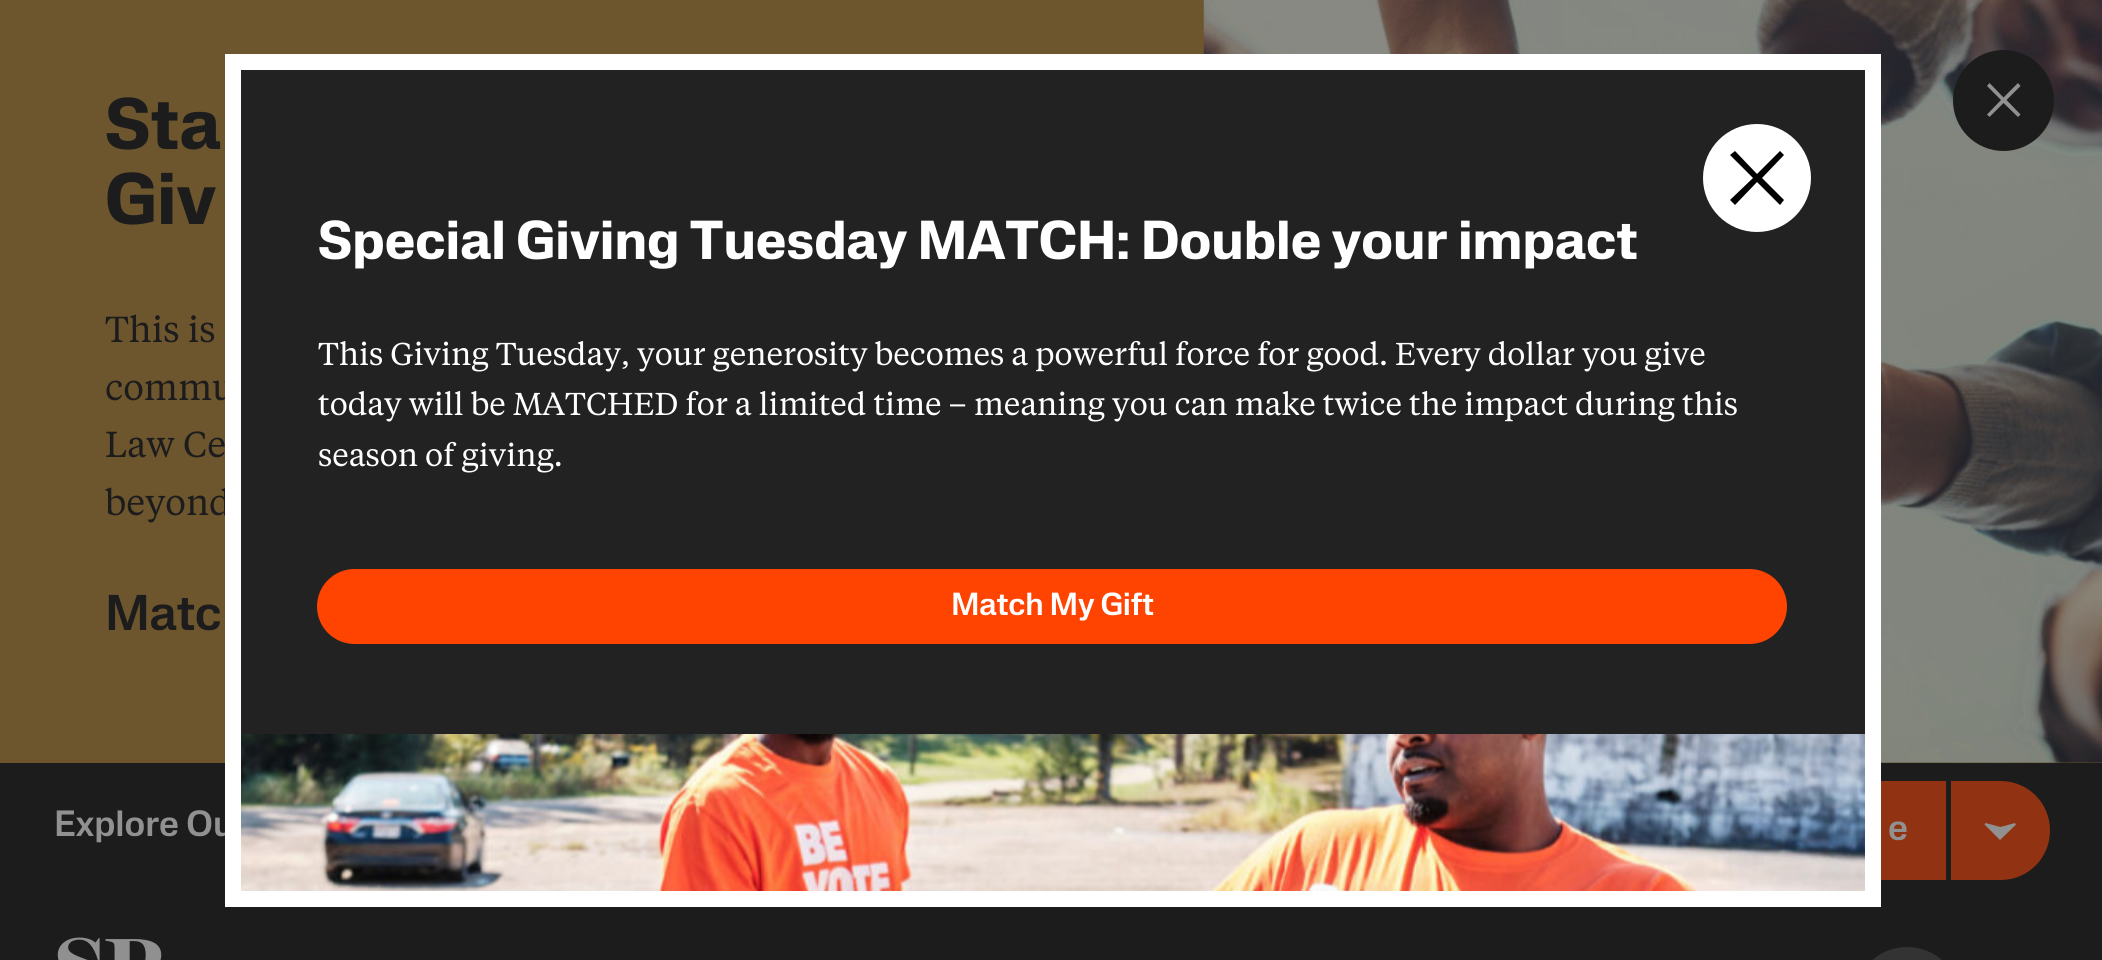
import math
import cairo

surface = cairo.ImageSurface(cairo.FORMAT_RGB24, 2102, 960)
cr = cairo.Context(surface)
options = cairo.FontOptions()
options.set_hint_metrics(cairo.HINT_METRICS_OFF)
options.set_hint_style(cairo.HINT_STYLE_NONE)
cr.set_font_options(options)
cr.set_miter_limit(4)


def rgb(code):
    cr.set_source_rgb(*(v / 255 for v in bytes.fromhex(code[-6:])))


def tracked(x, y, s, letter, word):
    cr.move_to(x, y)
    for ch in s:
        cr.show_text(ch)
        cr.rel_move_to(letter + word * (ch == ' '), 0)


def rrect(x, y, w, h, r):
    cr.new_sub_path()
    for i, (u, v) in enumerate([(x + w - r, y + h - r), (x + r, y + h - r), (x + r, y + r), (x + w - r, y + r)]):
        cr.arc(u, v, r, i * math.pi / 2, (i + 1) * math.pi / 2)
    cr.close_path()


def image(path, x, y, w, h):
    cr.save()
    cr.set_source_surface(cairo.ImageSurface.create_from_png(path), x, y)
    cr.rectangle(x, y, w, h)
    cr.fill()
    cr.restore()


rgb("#1c1c1c")
cr.paint()
rgb("#6d552e")
cr.rectangle(0, 0, 2102, 763)
cr.fill()
image("img/1.png", 1203, 0, 899, 763)
rgb("#1c1c1c")
cr.arc(2003.5, 100.5, 50.5, 0, 2 * math.pi)
cr.fill()
rgb("#919191")
cr.new_path()
cr.move_to(2020.5, 86)
cr.line_to(2018, 83)
cr.line_to(2003.5, 97.5)
cr.line_to(1989.5, 83)
cr.line_to(1987, 86)
cr.line_to(2001, 100)
cr.line_to(1987, 114.5)
cr.line_to(1989.5, 117)
cr.line_to(2003.5, 103)
cr.line_to(2018, 117)
cr.line_to(2020.5, 114.5)
cr.line_to(2006.5, 100)
cr.close_path()
cr.fill()
rgb("#222222")
cr.rectangle(241, 70, 1624, 664)
cr.fill()
rgb("#913312")
cr.rectangle(1881, 783, 63, 95)
cr.fill()
cr.rectangle(1749, 782, 196, 97)
cr.stroke()
cr.new_path()
cr.move_to(1952, 782)
cr.line_to(2000.5, 782)
cr.curve_to(2027.5, 782, 2049, 803.5, 2049, 830.5)
cr.curve_to(2049, 857.5, 2027.5, 879, 2000.5, 879)
cr.line_to(1952, 879)
cr.close_path()
cr.fill_preserve()
cr.stroke()
rgb("#919191")
cr.new_path()
cr.move_to(2016, 824.5)
cr.line_to(2015, 823)
cr.line_to(2000.5, 827)
cr.line_to(1985.5, 823)
cr.line_to(1984.5, 824.5)
cr.line_to(2000, 840)
cr.close_path()
cr.fill()
image("img/3.png", 57, 937, 105, 23)
rgb("#333333")
rrect(1854, 947, 106, 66, 53)
cr.fill()
cr.select_font_face("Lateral", cairo.FONT_SLANT_NORMAL, cairo.FONT_WEIGHT_BOLD)
cr.set_font_size(72)
rgb("#1c1c1c")
cr.move_to(105, 149)
cr.show_text("Sta")
cr.move_to(105, 224)
cr.show_text("Giv")
cr.select_font_face("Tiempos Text")
cr.set_font_size(36)
for x, y, s in [
    (105, 342, "This is"),
    (105, 400, "commu"),
    (105, 457, "Law Ce"),
    (105, 515, "beyond"),
]:
    cr.move_to(x, y)
    cr.show_text(s)
cr.select_font_face("Lateral Medium")
cr.set_font_size(49.5)
tracked(105, 630, "Matc", -0.5, 0)
cr.set_font_size(36)
rgb("#919191")
cr.move_to(54, 836)
cr.show_text("Explore Ou")
cr.rectangle(233, 62, 1640, 837)
rgb("#ffffff")
cr.set_line_width(16)
cr.stroke()
cr.arc(1757, 178, 53, 0, 2 * math.pi)
cr.fill_preserve()
cr.set_line_width(2)
cr.stroke()
rgb("#000000")
cr.new_path()
cr.move_to(1784, 155)
cr.line_to(1780, 151)
cr.line_to(1757, 174)
cr.line_to(1735, 151)
cr.line_to(1730, 155)
cr.line_to(1753, 178)
cr.line_to(1730, 200)
cr.line_to(1735, 205)
cr.line_to(1757, 182)
cr.line_to(1780, 205)
cr.line_to(1784, 200)
cr.line_to(1762, 178)
cr.close_path()
cr.fill()
cr.select_font_face("Tiempos Text")
cr.set_font_size(31.5)
rgb("#ffffff")
for x, y, s in [
    (318, 466, "season of giving."),
    (318, 415, "today will be MATCHED for a limited time – meaning you can make twice the impact during this"),
    (318, 365, "This Giving Tuesday, your generosity becomes a powerful force for good. Every dollar you give"),
]:
    cr.move_to(x, y)
    cr.show_text(s)
image("img/2.png", 241, 734, 1624, 157)
rgb("#ff4301")
rrect(317, 569, 1470, 75, 37.5)
cr.fill()
cr.select_font_face("Lateral Medium")
rgb("#ffffff")
tracked(951, 615, "Match My Gift", -0.25, 0)
cr.select_font_face("Lateral", cairo.FONT_SLANT_NORMAL, cairo.FONT_WEIGHT_BOLD)
cr.set_font_size(54)
cr.move_to(318, 259)
cr.show_text("Special Giving Tuesday MATCH: Double your impact")
cr.select_font_face("Lateral Medium")
cr.set_font_size(36)
rgb("#919191")
cr.move_to(1888, 840)
cr.show_text("e")
surface.write_to_png("page.png")
